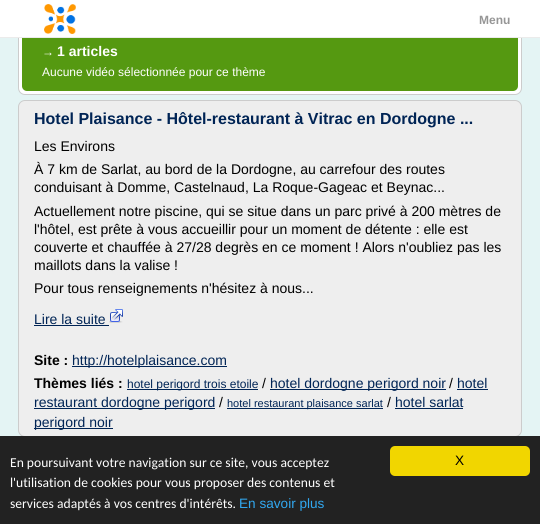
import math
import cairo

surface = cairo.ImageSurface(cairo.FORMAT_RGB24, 540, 524)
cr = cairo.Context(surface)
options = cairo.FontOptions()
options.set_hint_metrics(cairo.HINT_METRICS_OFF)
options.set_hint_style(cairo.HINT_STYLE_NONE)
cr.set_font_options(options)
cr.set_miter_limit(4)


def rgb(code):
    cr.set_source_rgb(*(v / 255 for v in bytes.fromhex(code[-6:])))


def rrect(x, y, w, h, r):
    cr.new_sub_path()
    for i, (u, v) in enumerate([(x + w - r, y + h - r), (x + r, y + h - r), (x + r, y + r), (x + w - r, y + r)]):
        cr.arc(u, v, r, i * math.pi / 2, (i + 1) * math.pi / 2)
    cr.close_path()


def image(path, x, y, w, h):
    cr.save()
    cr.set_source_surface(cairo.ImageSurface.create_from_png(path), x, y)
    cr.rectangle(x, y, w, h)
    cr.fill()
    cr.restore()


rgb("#e4f4f4")
cr.paint()
rgb("#ffffff")
rrect(18.5, -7.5, 503, 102, 6.5)
cr.fill_preserve()
rgb("#cccccc")
cr.set_line_width(1)
cr.stroke()
rgb("#559911")
rrect(22, -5, 496, 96, 5)
cr.fill()
rgb("#ffffff")
cr.rectangle(0, 0, 540, 37)
cr.fill()
rgb("#ebebeb")
cr.rectangle(0, 37, 540, 1)
cr.fill()
image("img/1.png", 44, 4, 32, 30)
rgb("#eeeeee")
rrect(18.5, 100.5, 503, 336, 6.5)
cr.fill_preserve()
rgb("#cccccc")
cr.stroke()
rgb("#002455")
cr.rectangle(34, 325, 75, 1)
cr.fill()
image("img/2.png", 109, 309, 14, 14)
for x, y, w, h, color in [
    (72, 366, 155, 1, "#002455"),
    (127, 389, 131, 1, "#002455"),
    (270, 389, 176, 1, "#002455"),
    (457, 389, 31, 1, "#002455"),
    (34, 408, 181, 1, "#002455"),
    (227, 408, 156, 1, "#002455"),
    (395, 408, 68, 1, "#002455"),
    (34, 428, 79, 1, "#002455"),
    (0, 436, 540, 88, "#222222"),
]:
    rgb(color)
    cr.rectangle(x, y, w, h)
    cr.fill()
rgb("#f1d600")
rrect(390, 446, 140, 30, 5)
cr.fill()
cr.select_font_face("Liberation Sans", cairo.FONT_SLANT_NORMAL, cairo.FONT_WEIGHT_BOLD)
cr.set_font_size(12)
rgb("#969696")
cr.move_to(479, 24)
cr.show_text("Menu")
cr.select_font_face("Liberation Sans")
rgb("#ffffff")
cr.move_to(42, 56)
cr.show_text("→")
cr.select_font_face("Liberation Sans", cairo.FONT_SLANT_NORMAL, cairo.FONT_WEIGHT_BOLD)
cr.set_font_size(14)
cr.move_to(57, 56)
cr.show_text("1 articles")
cr.select_font_face("Liberation Sans")
cr.set_font_size(12)
cr.move_to(42, 76)
cr.show_text("Aucune vidéo sélectionnée pour ce thème")
cr.select_font_face("Liberation Sans", cairo.FONT_SLANT_NORMAL, cairo.FONT_WEIGHT_BOLD)
cr.set_font_size(16)
rgb("#002455")
cr.move_to(34, 124)
cr.show_text("Hotel Plaisance - Hôtel-restaurant à Vitrac en Dordogne ...")
cr.select_font_face("Liberation Sans")
cr.set_font_size(14)
rgb("#000000")
for x, y, s in [
    (34, 151, "Les Environs"),
    (34, 174, "À 7 km de Sarlat, au bord de la Dordogne, au carrefour des routes"),
    (34, 192, "conduisant à Domme, Castelnaud, La Roque-Gageac et Beynac..."),
    (34, 216, "Actuellement notre piscine, qui se situe dans un parc privé à 200 mètres de"),
    (34, 234, "l'hôtel, est prête à vous accueillir pour un moment de détente : elle est"),
    (34, 252, "couverte et chauffée à 27/28 degrès en ce moment ! Alors n'oubliez pas les"),
    (34, 270, "maillots dans la valise !"),
    (34, 293, "Pour tous renseignements n'hésitez à nous..."),
]:
    cr.move_to(x, y)
    cr.show_text(s)
rgb("#002455")
cr.move_to(34, 324)
cr.show_text("Lire la suite")
cr.select_font_face("Liberation Sans", cairo.FONT_SLANT_NORMAL, cairo.FONT_WEIGHT_BOLD)
rgb("#000000")
cr.move_to(34, 365)
cr.show_text("Site :")
cr.select_font_face("Liberation Sans")
rgb("#002455")
cr.move_to(72, 365)
cr.show_text("http://hotelplaisance.com")
cr.select_font_face("Liberation Sans", cairo.FONT_SLANT_NORMAL, cairo.FONT_WEIGHT_BOLD)
rgb("#000000")
cr.move_to(34, 388)
cr.show_text("Thèmes liés :")
cr.select_font_face("Liberation Sans")
cr.set_font_size(12)
rgb("#002455")
cr.move_to(127, 388)
cr.show_text("hotel perigord trois etoile")
cr.set_font_size(14)
rgb("#000000")
cr.move_to(262, 388)
cr.show_text("/")
rgb("#002455")
cr.move_to(270, 388)
cr.show_text("hotel dordogne perigord noir")
rgb("#000000")
cr.move_to(449, 388)
cr.show_text("/")
rgb("#002455")
cr.move_to(457, 388)
cr.show_text("hotel")
cr.move_to(34, 407)
cr.show_text("restaurant dordogne perigord")
rgb("#000000")
cr.move_to(219, 407)
cr.show_text("/")
cr.set_font_size(11)
rgb("#002455")
cr.move_to(227, 407)
cr.show_text("hotel restaurant plaisance sarlat")
cr.set_font_size(14)
rgb("#000000")
cr.move_to(387, 407)
cr.show_text("/")
rgb("#002455")
cr.move_to(395, 407)
cr.show_text("hotel sarlat")
cr.move_to(34, 427)
cr.show_text("perigord noir")
cr.select_font_face("Carlito")
cr.set_font_size(13.6)
rgb("#ffffff")
for x, y, s in [
    (10, 467, "En poursuivant votre navigation sur ce site, vous acceptez"),
    (10, 487, "l'utilisation de cookies pour vous proposer des contenus et"),
    (10, 508, "services adaptés à vos centres d'intérêts."),
]:
    cr.move_to(x, y)
    cr.show_text(s)
cr.select_font_face("Liberation Sans")
rgb("#31a8f0")
cr.move_to(239, 508)
cr.show_text("En savoir plus")
rgb("#000000")
cr.move_to(455, 465)
cr.show_text("X")
surface.write_to_png("page.png")
